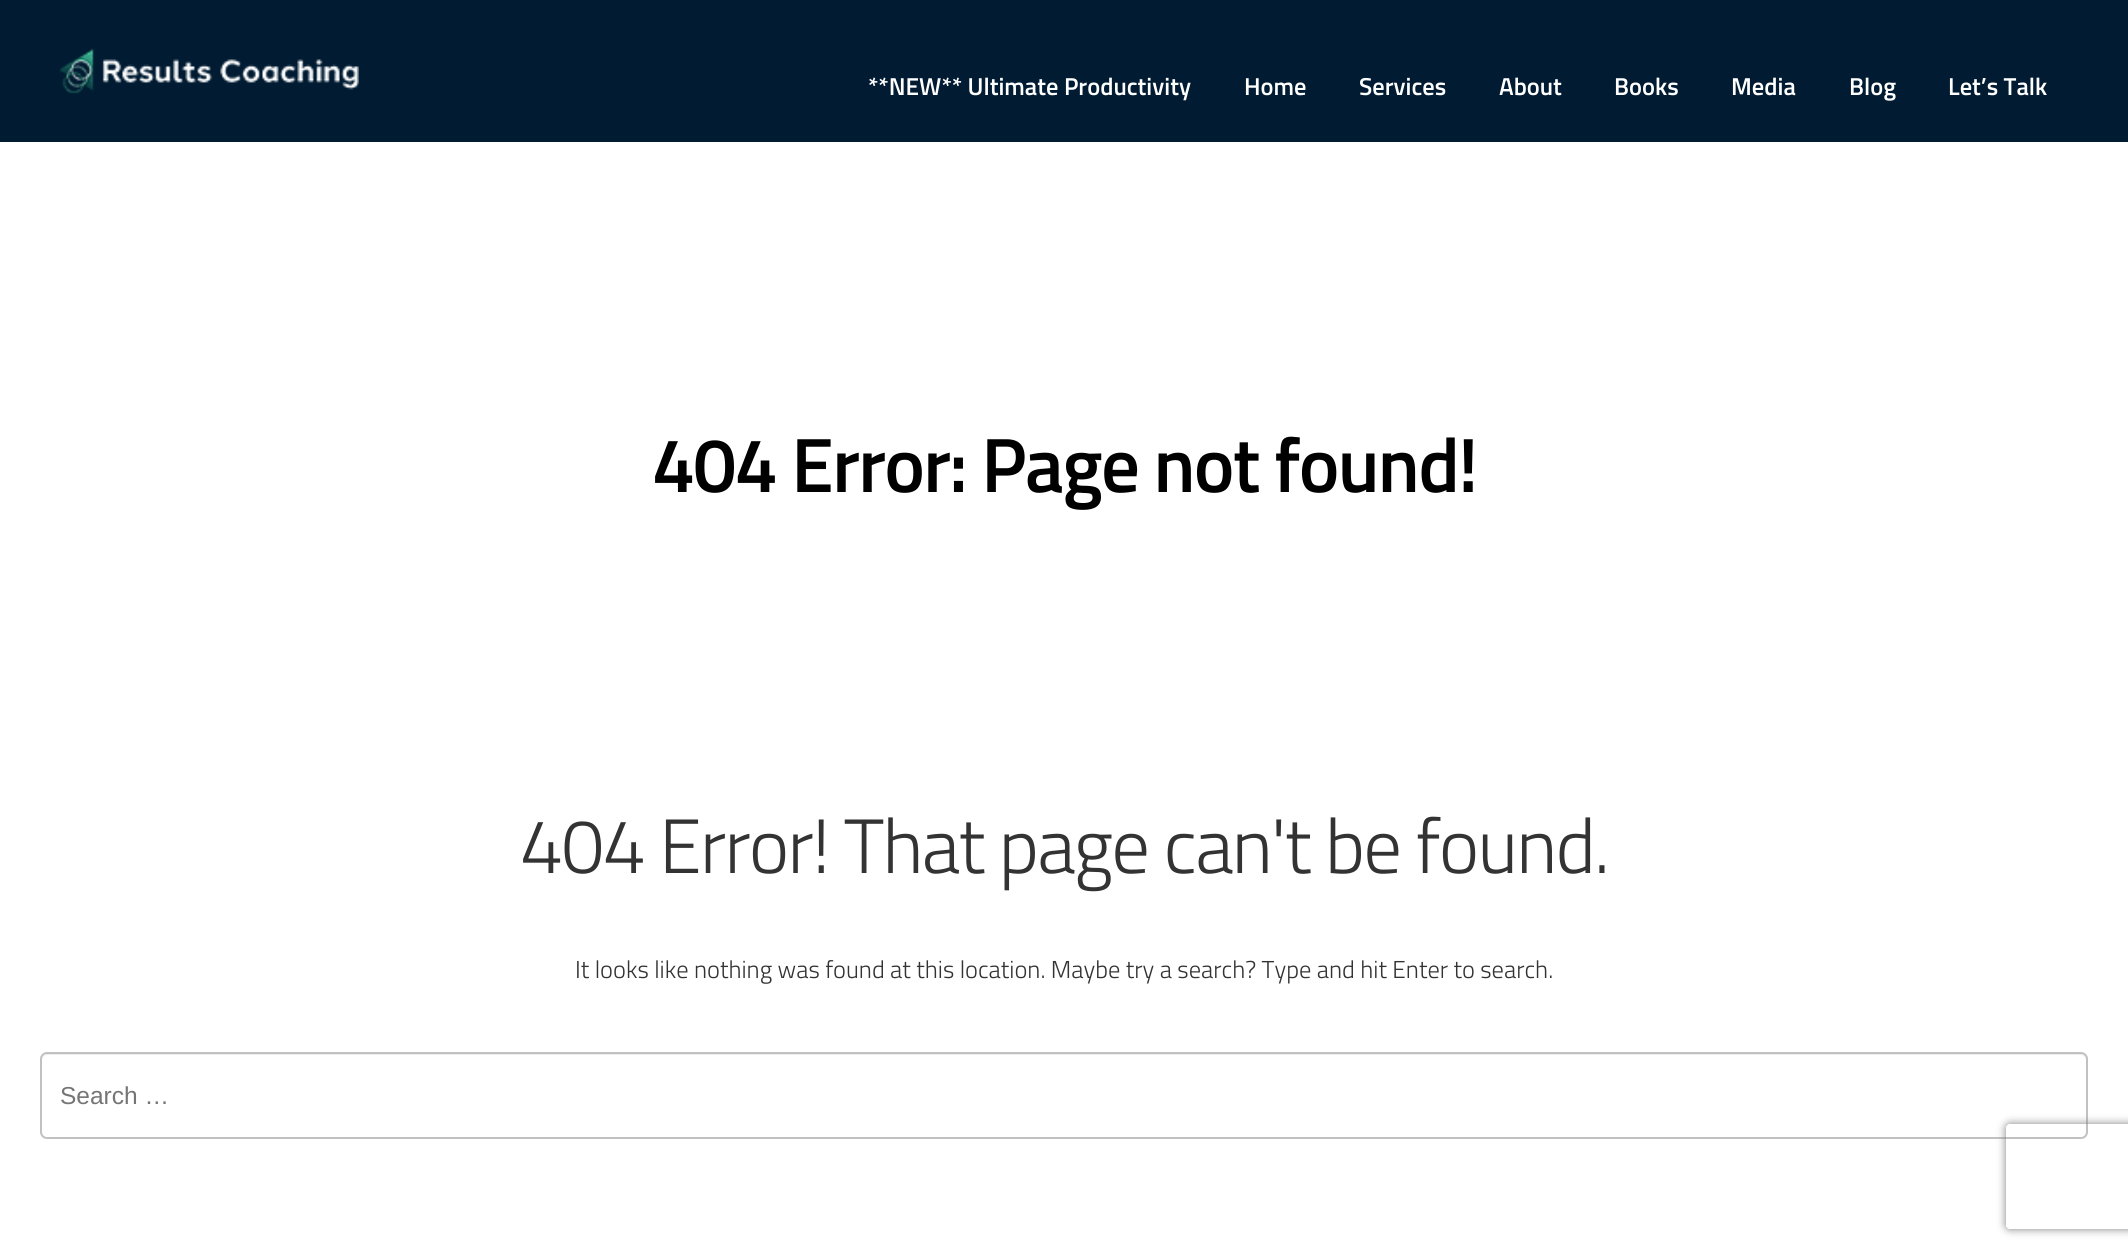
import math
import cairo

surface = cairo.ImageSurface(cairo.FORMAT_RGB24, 2128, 1253)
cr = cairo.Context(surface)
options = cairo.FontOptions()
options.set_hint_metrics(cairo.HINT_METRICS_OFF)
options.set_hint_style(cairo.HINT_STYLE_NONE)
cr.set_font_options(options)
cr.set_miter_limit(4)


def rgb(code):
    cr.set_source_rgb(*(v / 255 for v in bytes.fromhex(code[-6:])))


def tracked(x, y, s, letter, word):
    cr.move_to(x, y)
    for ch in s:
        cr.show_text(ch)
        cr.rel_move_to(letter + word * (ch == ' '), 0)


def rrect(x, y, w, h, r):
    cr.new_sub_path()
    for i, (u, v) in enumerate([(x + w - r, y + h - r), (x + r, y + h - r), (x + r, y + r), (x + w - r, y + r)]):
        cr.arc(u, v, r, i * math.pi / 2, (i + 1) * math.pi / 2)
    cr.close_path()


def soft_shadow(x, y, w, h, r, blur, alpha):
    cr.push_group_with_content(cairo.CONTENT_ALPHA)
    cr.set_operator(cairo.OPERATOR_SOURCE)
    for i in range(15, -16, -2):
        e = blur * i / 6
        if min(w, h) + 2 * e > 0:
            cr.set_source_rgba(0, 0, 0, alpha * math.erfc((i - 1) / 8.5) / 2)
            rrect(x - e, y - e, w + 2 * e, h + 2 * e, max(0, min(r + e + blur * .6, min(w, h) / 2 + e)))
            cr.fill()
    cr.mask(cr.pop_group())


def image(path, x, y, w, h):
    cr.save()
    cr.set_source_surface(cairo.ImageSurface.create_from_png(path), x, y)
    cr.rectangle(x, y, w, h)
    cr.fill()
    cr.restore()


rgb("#ffffff")
cr.paint()
rgb("#001b32")
cr.rectangle(0, 0, 2128, 142)
cr.fill()
image("img/1.png", 59, 48, 300, 46)
rgb("#ececec")
cr.new_path()
cr.move_to(47, 1055)
cr.line_to(2081, 1055)
cr.curve_to(2084, 1055, 2086, 1058, 2086, 1060)
cr.curve_to(2086, 1057, 2084, 1054, 2081, 1054)
cr.line_to(47, 1054)
cr.curve_to(45, 1054, 43, 1056, 42, 1058)
cr.line_to(42, 1060)
cr.curve_to(42, 1058, 44, 1055, 47, 1055)
cr.close_path()
cr.fill()
rrect(41, 1053, 2046, 85, 6)
rgb("#c1c1c1")
cr.stroke()
cr.save()
cr.set_fill_rule(cairo.FILL_RULE_EVEN_ODD)
cr.new_path()
cr.move_to(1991, 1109)
cr.line_to(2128, 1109)
cr.line_to(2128, 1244)
cr.line_to(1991, 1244)
cr.close_path()
cr.move_to(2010, 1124)
cr.line_to(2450, 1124)
cr.curve_to(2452, 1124, 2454, 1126, 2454, 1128)
cr.line_to(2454, 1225)
cr.curve_to(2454, 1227, 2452, 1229, 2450, 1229)
cr.line_to(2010, 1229)
cr.curve_to(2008, 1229, 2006, 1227, 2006, 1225)
cr.line_to(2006, 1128)
cr.curve_to(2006, 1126, 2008, 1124, 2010, 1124)
cr.close_path()
cr.clip()
rgb("#808080")
soft_shadow(2006, 1124, 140, 105, 4, 4.5, 1)
cr.restore()
cr.select_font_face("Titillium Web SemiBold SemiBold")
cr.set_font_size(24.5)
rgb("#ffffff")
for x, y, s in [
    (868, 95, "**NEW** Ultimate Productivity"),
    (1244, 95, "Home"),
    (1359, 95, "Services"),
    (1499, 95, "About"),
    (1614, 95, "Books"),
    (1731, 95, "Media"),
    (1849, 95, "Blog"),
    (1948, 95, "Let’s Talk"),
]:
    cr.move_to(x, y)
    cr.show_text(s)
cr.set_font_size(77)
rgb("#000000")
tracked(652, 492, "404 Error: Page not found!", -1.75, 0)
cr.select_font_face("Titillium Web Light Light")
rgb("#333333")
tracked(520, 873, "404 Error! That page can't be found.", -1.75, 0)
cr.set_font_size(24.5)
cr.move_to(575, 978)
cr.show_text("It looks like nothing was found at this location. Maybe try a search? Type and hit Enter to search.")
cr.select_font_face("Liberation Sans")
rgb("#757575")
cr.move_to(60, 1104)
cr.show_text("Search …")
surface.write_to_png("page.png")
